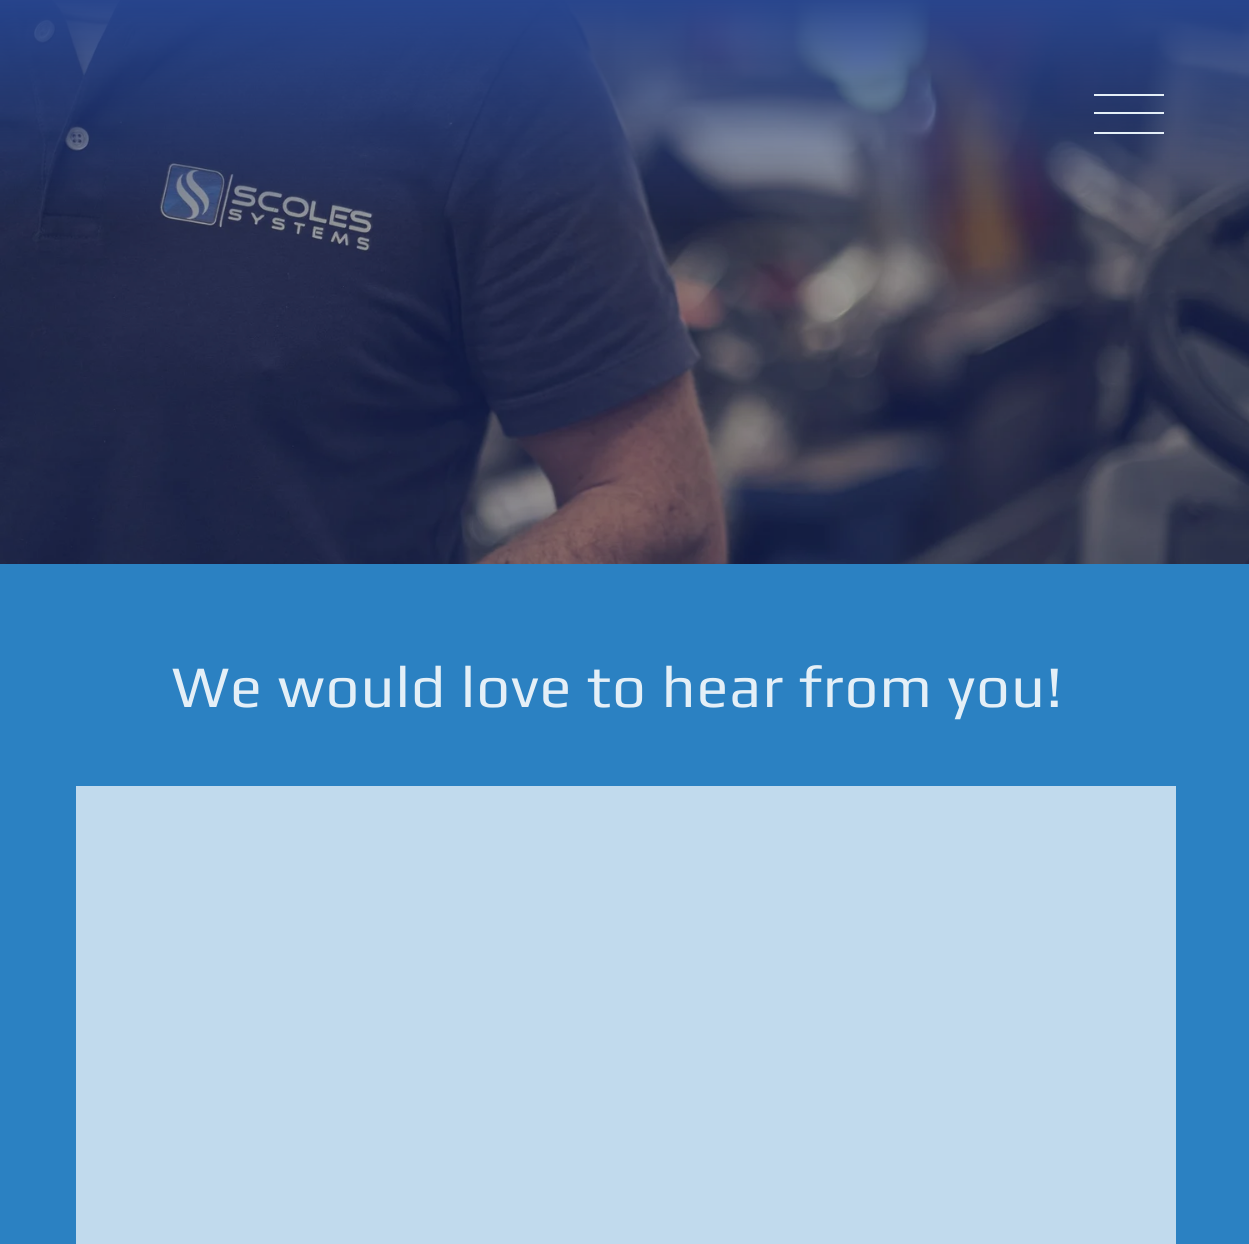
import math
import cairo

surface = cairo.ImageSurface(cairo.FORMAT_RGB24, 1249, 1244)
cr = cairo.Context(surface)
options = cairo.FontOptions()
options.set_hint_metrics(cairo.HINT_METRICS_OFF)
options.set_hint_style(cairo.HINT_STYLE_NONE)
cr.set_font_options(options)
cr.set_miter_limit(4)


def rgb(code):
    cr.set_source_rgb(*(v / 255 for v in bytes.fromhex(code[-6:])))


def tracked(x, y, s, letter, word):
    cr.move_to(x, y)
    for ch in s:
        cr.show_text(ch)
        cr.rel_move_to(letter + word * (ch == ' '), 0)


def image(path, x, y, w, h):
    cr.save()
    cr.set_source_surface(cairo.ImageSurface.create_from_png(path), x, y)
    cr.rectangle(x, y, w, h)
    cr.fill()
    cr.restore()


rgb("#ffffff")
cr.paint()
image("img/1.png", 0, 0, 1249, 564)
for x, y, w, h, color in [
    (1094, 94, 70, 2, "#e4eff7"),
    (1094, 112, 70, 2, "#e4eff7"),
    (1094, 132, 70, 2, "#e4eff7"),
    (0, 564, 1249, 680, "#2b81c2"),
    (76, 786, 1100, 458, "#c1daed"),
]:
    rgb(color)
    cr.rectangle(x, y, w, h)
    cr.fill()
cr.select_font_face("Play")
cr.set_font_size(59)
rgb("#e4eff7")
tracked(172, 707, "We would love to hear from you!", 1.2, 0)
surface.write_to_png("page.png")
